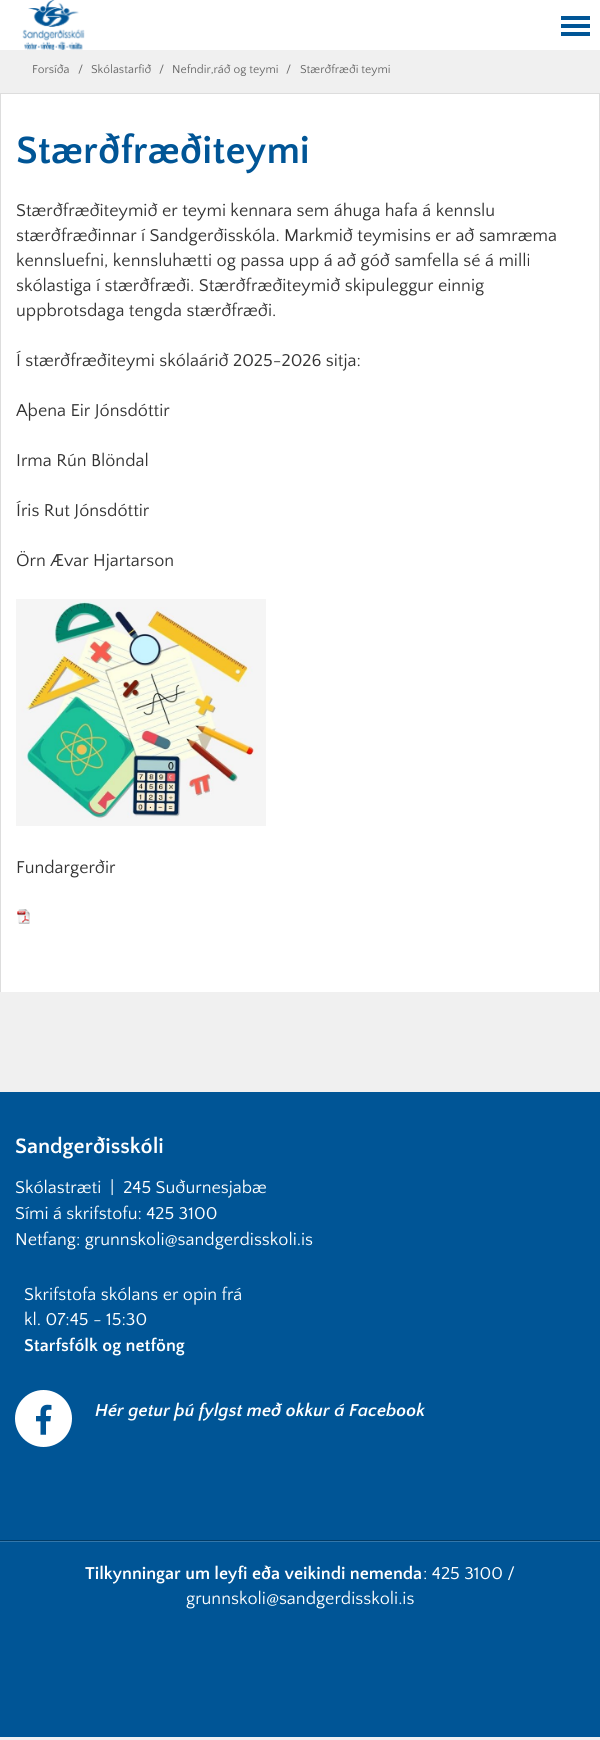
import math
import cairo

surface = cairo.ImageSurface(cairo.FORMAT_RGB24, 600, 1740)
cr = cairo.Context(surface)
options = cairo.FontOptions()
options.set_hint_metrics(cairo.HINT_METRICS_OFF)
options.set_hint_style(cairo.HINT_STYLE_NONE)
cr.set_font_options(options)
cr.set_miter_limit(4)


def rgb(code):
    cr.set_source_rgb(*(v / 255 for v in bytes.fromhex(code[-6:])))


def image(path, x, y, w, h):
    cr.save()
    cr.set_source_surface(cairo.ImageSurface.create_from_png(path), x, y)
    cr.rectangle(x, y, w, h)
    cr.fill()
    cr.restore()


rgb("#f0f0f0")
cr.paint()
rgb("#ffffff")
cr.rectangle(0, 0, 600, 50)
cr.fill()
image("img/1.png", 22, 0, 63, 50)
for x, y, w, h, color in [
    (561, 16, 29, 4, "#005596"),
    (561, 24, 29, 4, "#005596"),
    (561, 32, 29, 4, "#005596"),
    (1, 94, 598, 898, "#ffffff"),
    (0, 93, 600, 1, "#dddddd"),
    (599, 93, 1, 899, "#dddddd"),
    (0, 93, 1, 899, "#dddddd"),
]:
    rgb(color)
    cr.rectangle(x, y, w, h)
    cr.fill()
image("img/2.png", 16, 599, 250, 227)
image("img/3.png", 17, 909, 13, 15)
rgb("#005596")
cr.rectangle(0, 1092, 600, 645)
cr.fill()
rgb("#ffffff")
cr.arc(43.5, 1418.5, 28.5, 0, 2 * math.pi)
cr.fill()
image("img/4.png", 36, 1404, 16, 31)
rgb("#003c69")
cr.rectangle(0, 1540, 600, 1)
cr.fill()
rgb("#3377ab")
cr.rectangle(0, 1541, 600, 1)
cr.fill()
cr.select_font_face("Quattrocento Sans")
cr.set_font_size(12)
rgb("#666666")
for x, y, s in [
    (32, 73, "Forsíða"),
    (78, 73, "/"),
    (91, 73, "Skólastarfið"),
    (159, 73, "/"),
    (172, 73, "Nefndir,ráð og teymi"),
    (286, 73, "/"),
    (300, 73, "Stærðfræði teymi"),
]:
    cr.move_to(x, y)
    cr.show_text(s)
cr.select_font_face("Quattrocento Sans", cairo.FONT_SLANT_NORMAL, cairo.FONT_WEIGHT_BOLD)
cr.set_font_size(40)
rgb("#005596")
cr.move_to(16, 163)
cr.show_text("Stærðfræðiteymi")
cr.select_font_face("Quattrocento Sans")
cr.set_font_size(18)
rgb("#333333")
for x, y, s in [
    (16, 216, "Stærðfræðiteymið er teymi kennara sem áhuga hafa á kennslu"),
    (16, 241, "stærðfræðinnar í Sandgerðisskóla. Markmið teymisins er að samræma"),
    (16, 266, "kennsluefni, kennsluhætti og passa upp á að góð samfella sé á milli"),
    (16, 291, "skólastiga í stærðfræði. Stærðfræðiteymið skipuleggur einnig"),
    (16, 316, "uppbrotsdaga tengda stærðfræði."),
    (16, 366, "Í stærðfræðiteymi skólaárið 2025-2026 sitja:"),
    (16, 416, "Aþena Eir Jónsdóttir"),
    (16, 466, "Irma Rún Blöndal"),
    (16, 516, "Íris Rut Jónsdóttir"),
    (16, 566, "Örn Ævar Hjartarson"),
    (16, 873, "Fundargerðir"),
]:
    cr.move_to(x, y)
    cr.show_text(s)
cr.select_font_face("Quattrocento Sans", cairo.FONT_SLANT_NORMAL, cairo.FONT_WEIGHT_BOLD)
cr.set_font_size(22)
rgb("#ffffff")
cr.move_to(15, 1153)
cr.show_text("Sandgerðisskóli")
cr.select_font_face("Quattrocento Sans")
cr.set_font_size(18)
for x, y, s in [
    (15, 1193, "Skólastræti  |  245 Suðurnesjabæ"),
    (15, 1219, "Sími á skrifstofu: 425 3100"),
    (15, 1245, "Netfang: grunnskoli@sandgerdisskoli.is"),
    (24, 1300, "Skrifstofa skólans er opin frá"),
    (24, 1325, "kl. 07:45 - 15:30"),
]:
    cr.move_to(x, y)
    cr.show_text(s)
cr.select_font_face("Quattrocento Sans", cairo.FONT_SLANT_NORMAL, cairo.FONT_WEIGHT_BOLD)
cr.move_to(24, 1351)
cr.show_text("Starfsfólk og netföng")
cr.select_font_face("Quattrocento Sans", cairo.FONT_SLANT_ITALIC, cairo.FONT_WEIGHT_BOLD)
cr.move_to(95, 1416)
cr.show_text("Hér getur þú fylgst með okkur á Facebook")
cr.select_font_face("Quattrocento Sans", cairo.FONT_SLANT_NORMAL, cairo.FONT_WEIGHT_BOLD)
cr.move_to(85, 1579)
cr.show_text("Tilkynningar um leyfi eða veikindi nemenda")
cr.select_font_face("Quattrocento Sans")
cr.move_to(423, 1579)
cr.show_text(": 425 3100 /")
cr.move_to(186, 1604)
cr.show_text("grunnskoli@sandgerdisskoli.is")
surface.write_to_png("page.png")
